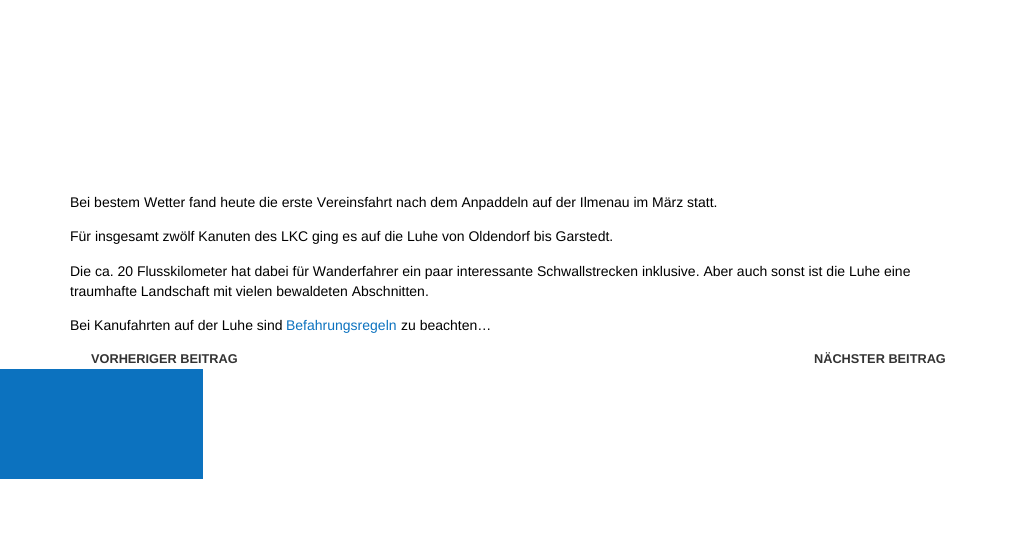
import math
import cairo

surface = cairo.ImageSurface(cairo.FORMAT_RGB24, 1017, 553)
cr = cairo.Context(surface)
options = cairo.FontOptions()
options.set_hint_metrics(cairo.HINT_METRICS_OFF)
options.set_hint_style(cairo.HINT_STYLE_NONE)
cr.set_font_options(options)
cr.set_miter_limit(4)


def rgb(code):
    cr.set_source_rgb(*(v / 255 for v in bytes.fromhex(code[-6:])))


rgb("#ffffff")
cr.paint()
rgb("#0c72bf")
cr.rectangle(0, 369, 203, 110)
cr.fill()
cr.select_font_face("Liberation Sans")
cr.set_font_size(14)
rgb("#000000")
for x, y, s in [
    (70, 207, "Bei bestem Wetter fand heute die erste Vereinsfahrt nach dem Anpaddeln auf der Ilmenau im März statt."),
    (70, 241, "Für insgesamt zwölf Kanuten des LKC ging es auf die Luhe von Oldendorf bis Garstedt."),
    (70, 276, "Die ca. 20 Flusskilometer hat dabei für Wanderfahrer ein paar interessante Schwallstrecken inklusive. Aber auch sonst ist die Luhe eine"),
    (70, 296, "traumhafte Landschaft mit vielen bewaldeten Abschnitten."),
    (70, 330, "Bei Kanufahrten auf der Luhe sind"),
]:
    cr.move_to(x, y)
    cr.show_text(s)
rgb("#0c72bf")
cr.move_to(286, 330)
cr.show_text("Befahrungsregeln")
rgb("#000000")
cr.move_to(401, 330)
cr.show_text("zu beachten…")
cr.select_font_face("Liberation Sans", cairo.FONT_SLANT_NORMAL, cairo.FONT_WEIGHT_BOLD)
cr.set_font_size(12.75)
rgb("#333333")
cr.move_to(91, 363)
cr.show_text("VORHERIGER BEITRAG")
cr.move_to(814, 363)
cr.show_text("NÄCHSTER BEITRAG")
surface.write_to_png("page.png")
